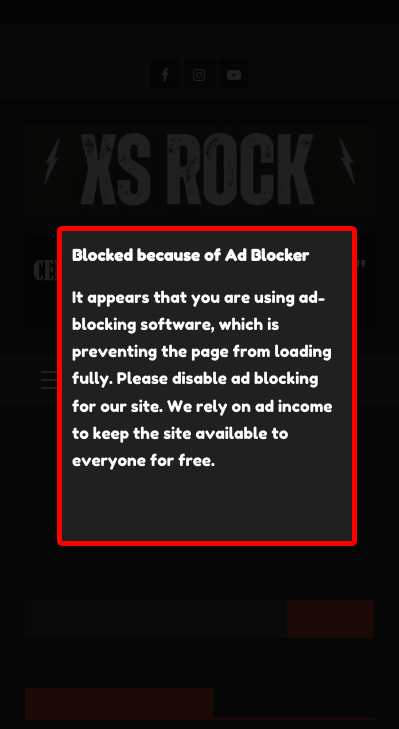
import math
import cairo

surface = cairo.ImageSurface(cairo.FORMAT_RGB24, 399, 729)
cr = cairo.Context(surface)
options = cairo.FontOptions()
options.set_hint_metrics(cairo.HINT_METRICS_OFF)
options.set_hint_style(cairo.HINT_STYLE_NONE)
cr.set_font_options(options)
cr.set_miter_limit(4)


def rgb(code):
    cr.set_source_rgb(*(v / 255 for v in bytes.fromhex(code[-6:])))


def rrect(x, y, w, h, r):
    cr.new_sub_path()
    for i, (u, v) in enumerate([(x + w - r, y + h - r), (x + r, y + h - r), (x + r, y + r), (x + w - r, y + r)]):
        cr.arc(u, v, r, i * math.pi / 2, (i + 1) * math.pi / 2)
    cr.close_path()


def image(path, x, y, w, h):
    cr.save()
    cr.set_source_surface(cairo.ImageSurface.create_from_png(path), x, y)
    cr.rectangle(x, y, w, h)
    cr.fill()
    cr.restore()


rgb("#000000")
cr.paint()
for x, y, w, h, color in [
    (0, 99, 399, 564, "#111111"),
    (0, 25, 399, 74, "#202020"),
    (150, 59, 30, 30, "#080808"),
]:
    rgb(color)
    cr.rectangle(x, y, w, h)
    cr.fill()
image("img/1.png", 161, 68, 8, 13)
cr.rectangle(185, 59, 30, 30)
cr.fill()
image("img/2.png", 193, 69, 12, 12)
cr.rectangle(219, 59, 30, 30)
cr.fill()
image("img/3.png", 227, 70, 14, 10)
image("img/4.png", 25, 124, 349, 91)
image("img/5.png", 25, 235, 349, 95)
for x, y, w, h, color in [
    (0, 355, 399, 50, "#202020"),
    (41, 379, 23, 2, "#fcfcfc"),
    (41, 371, 23, 2, "#fcfcfc"),
    (41, 387, 23, 2, "#fcfcfc"),
]:
    rgb(color)
    cr.rectangle(x, y, w, h)
    cr.fill()
rgb("#292929")
cr.new_path()
cr.move_to(28, 600)
cr.line_to(287, 600)
cr.line_to(287, 638)
cr.line_to(28, 638)
cr.curve_to(26.5, 638, 25, 636.5, 25, 635)
cr.line_to(25, 603)
cr.curve_to(25, 601.5, 26.5, 600, 28, 600)
cr.close_path()
cr.fill()
rgb("#d52924")
cr.new_path()
cr.move_to(287, 600)
cr.line_to(371, 600)
cr.curve_to(372.5, 600, 374, 601.5, 374, 603)
cr.line_to(374, 635)
cr.curve_to(374, 636.5, 372.5, 638, 371, 638)
cr.line_to(287, 638)
cr.close_path()
cr.fill()
for x, y, w, h, color in [
    (0, 663, 399, 66, "#1d1d1d"),
    (25, 718, 349, 2, "#d52924"),
    (25, 688, 188, 30, "#d52924"),
]:
    rgb(color)
    cr.rectangle(x, y, w, h)
    cr.fill()
cr.set_source_rgba(0.02, 0.02, 0.02, 0.89)
rrect(0, 0, 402, 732, 3)
cr.fill()
rgb("#202020")
rrect(59.5, 228.5, 295, 315, 2.5)
cr.fill_preserve()
rgb("#fc0000")
cr.set_line_width(5)
cr.stroke()
cr.select_font_face("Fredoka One", cairo.FONT_SLANT_NORMAL, cairo.FONT_WEIGHT_BOLD)
cr.set_font_size(16)
rgb("#fcfcfc")
cr.move_to(72, 261)
cr.show_text("Blocked because of Ad Blocker")
cr.select_font_face("Fredoka One")
for x, y, s in [
    (72, 303, "It appears that you are using ad-"),
    (72, 330, "blocking software, which is"),
    (72, 357, "preventing the page from loading"),
    (72, 384, "fully. Please disable ad blocking"),
    (72, 412, "for our site. We rely on ad income"),
    (72, 439, "to keep the site available to"),
    (72, 466, "everyone for free."),
]:
    cr.move_to(x, y)
    cr.show_text(s)
surface.write_to_png("page.png")
